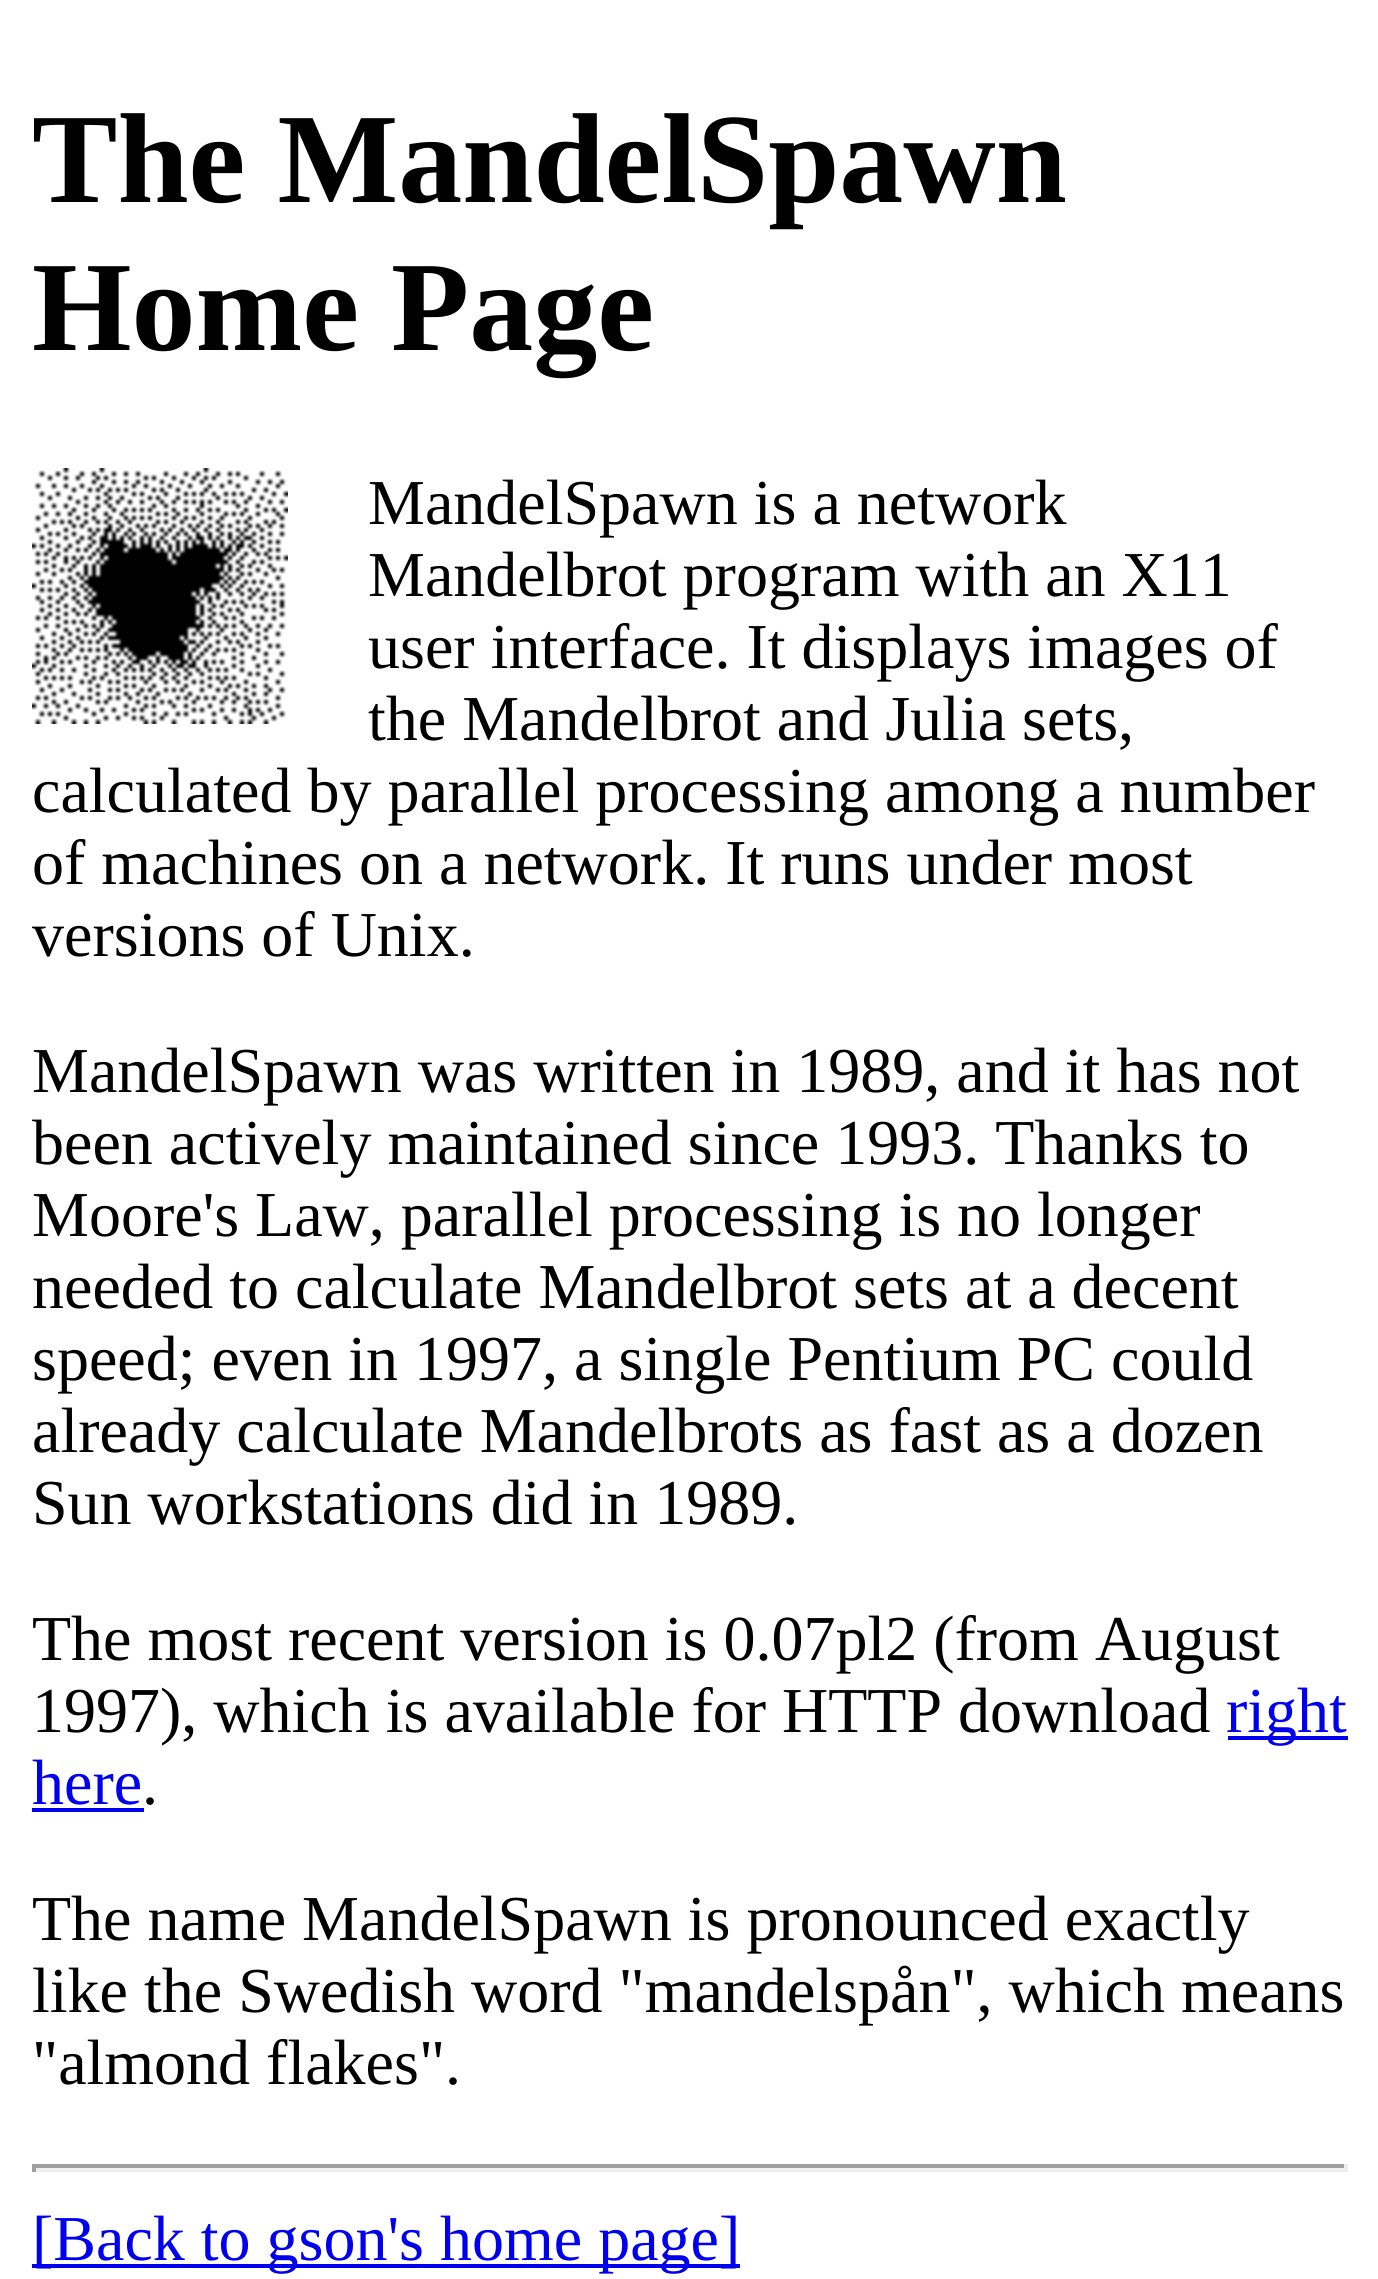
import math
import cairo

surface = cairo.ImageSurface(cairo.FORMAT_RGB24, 1378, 2279)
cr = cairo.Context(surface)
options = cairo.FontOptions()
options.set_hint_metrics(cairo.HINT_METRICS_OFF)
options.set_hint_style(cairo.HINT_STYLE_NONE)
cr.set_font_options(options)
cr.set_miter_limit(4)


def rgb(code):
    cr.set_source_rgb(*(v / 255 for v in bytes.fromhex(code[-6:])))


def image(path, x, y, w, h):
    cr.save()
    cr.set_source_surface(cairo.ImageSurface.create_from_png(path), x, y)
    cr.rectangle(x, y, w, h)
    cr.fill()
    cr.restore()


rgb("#ffffff")
cr.paint()
image("img/1.png", 32, 468, 256, 256)
for x, y, w, h, color in [
    (1228, 1736, 120, 4, "#0000ee"),
    (32, 1808, 112, 4, "#0000ee"),
    (32, 2164, 1316, 4, "#9f9f9f"),
    (1344, 2164, 4, 8, "#eeeeee"),
    (32, 2168, 1316, 4, "#eeeeee"),
    (32, 2164, 4, 8, "#9f9f9f"),
    (32, 2264, 708, 4, "#0000ee"),
]:
    rgb(color)
    cr.rectangle(x, y, w, h)
    cr.fill()
cr.select_font_face("Liberation Serif", cairo.FONT_SLANT_NORMAL, cairo.FONT_WEIGHT_BOLD)
cr.set_font_size(128)
rgb("#000000")
cr.move_to(32, 202)
cr.show_text("The MandelSpawn")
cr.move_to(32, 350)
cr.show_text("Home Page")
cr.select_font_face("Liberation Serif")
cr.set_font_size(64)
for x, y, s in [
    (368, 524, "MandelSpawn is a network"),
    (368, 596, "Mandelbrot program with an X11"),
    (368, 668, "user interface. It displays images of"),
    (368, 740, "the Mandelbrot and Julia sets,"),
    (32, 812, "calculated by parallel processing among a number"),
    (32, 884, "of machines on a network. It runs under most"),
    (32, 956, "versions of Unix."),
    (32, 1092, "MandelSpawn was written in 1989, and it has not"),
    (32, 1164, "been actively maintained since 1993. Thanks to"),
    (32, 1236, "Moore's Law, parallel processing is no longer"),
    (32, 1308, "needed to calculate Mandelbrot sets at a decent"),
    (32, 1380, "speed; even in 1997, a single Pentium PC could"),
    (32, 1452, "already calculate Mandelbrots as fast as a dozen"),
    (32, 1524, "Sun workstations did in 1989."),
    (32, 1660, "The most recent version is 0.07pl2 (from August"),
    (32, 1732, "1997), which is available for HTTP download"),
]:
    cr.move_to(x, y)
    cr.show_text(s)
rgb("#0000ee")
cr.move_to(1226, 1732)
cr.show_text("right")
cr.move_to(32, 1804)
cr.show_text("here")
rgb("#000000")
for x, y, s in [
    (142, 1804, "."),
    (32, 1940, "The name MandelSpawn is pronounced exactly"),
    (32, 2012, "like the Swedish word \"mandelspån\", which means"),
    (32, 2084, "\"almond flakes\"."),
]:
    cr.move_to(x, y)
    cr.show_text(s)
rgb("#0000ee")
cr.move_to(32, 2260)
cr.show_text("[Back to gson's home page]")
surface.write_to_png("page.png")
